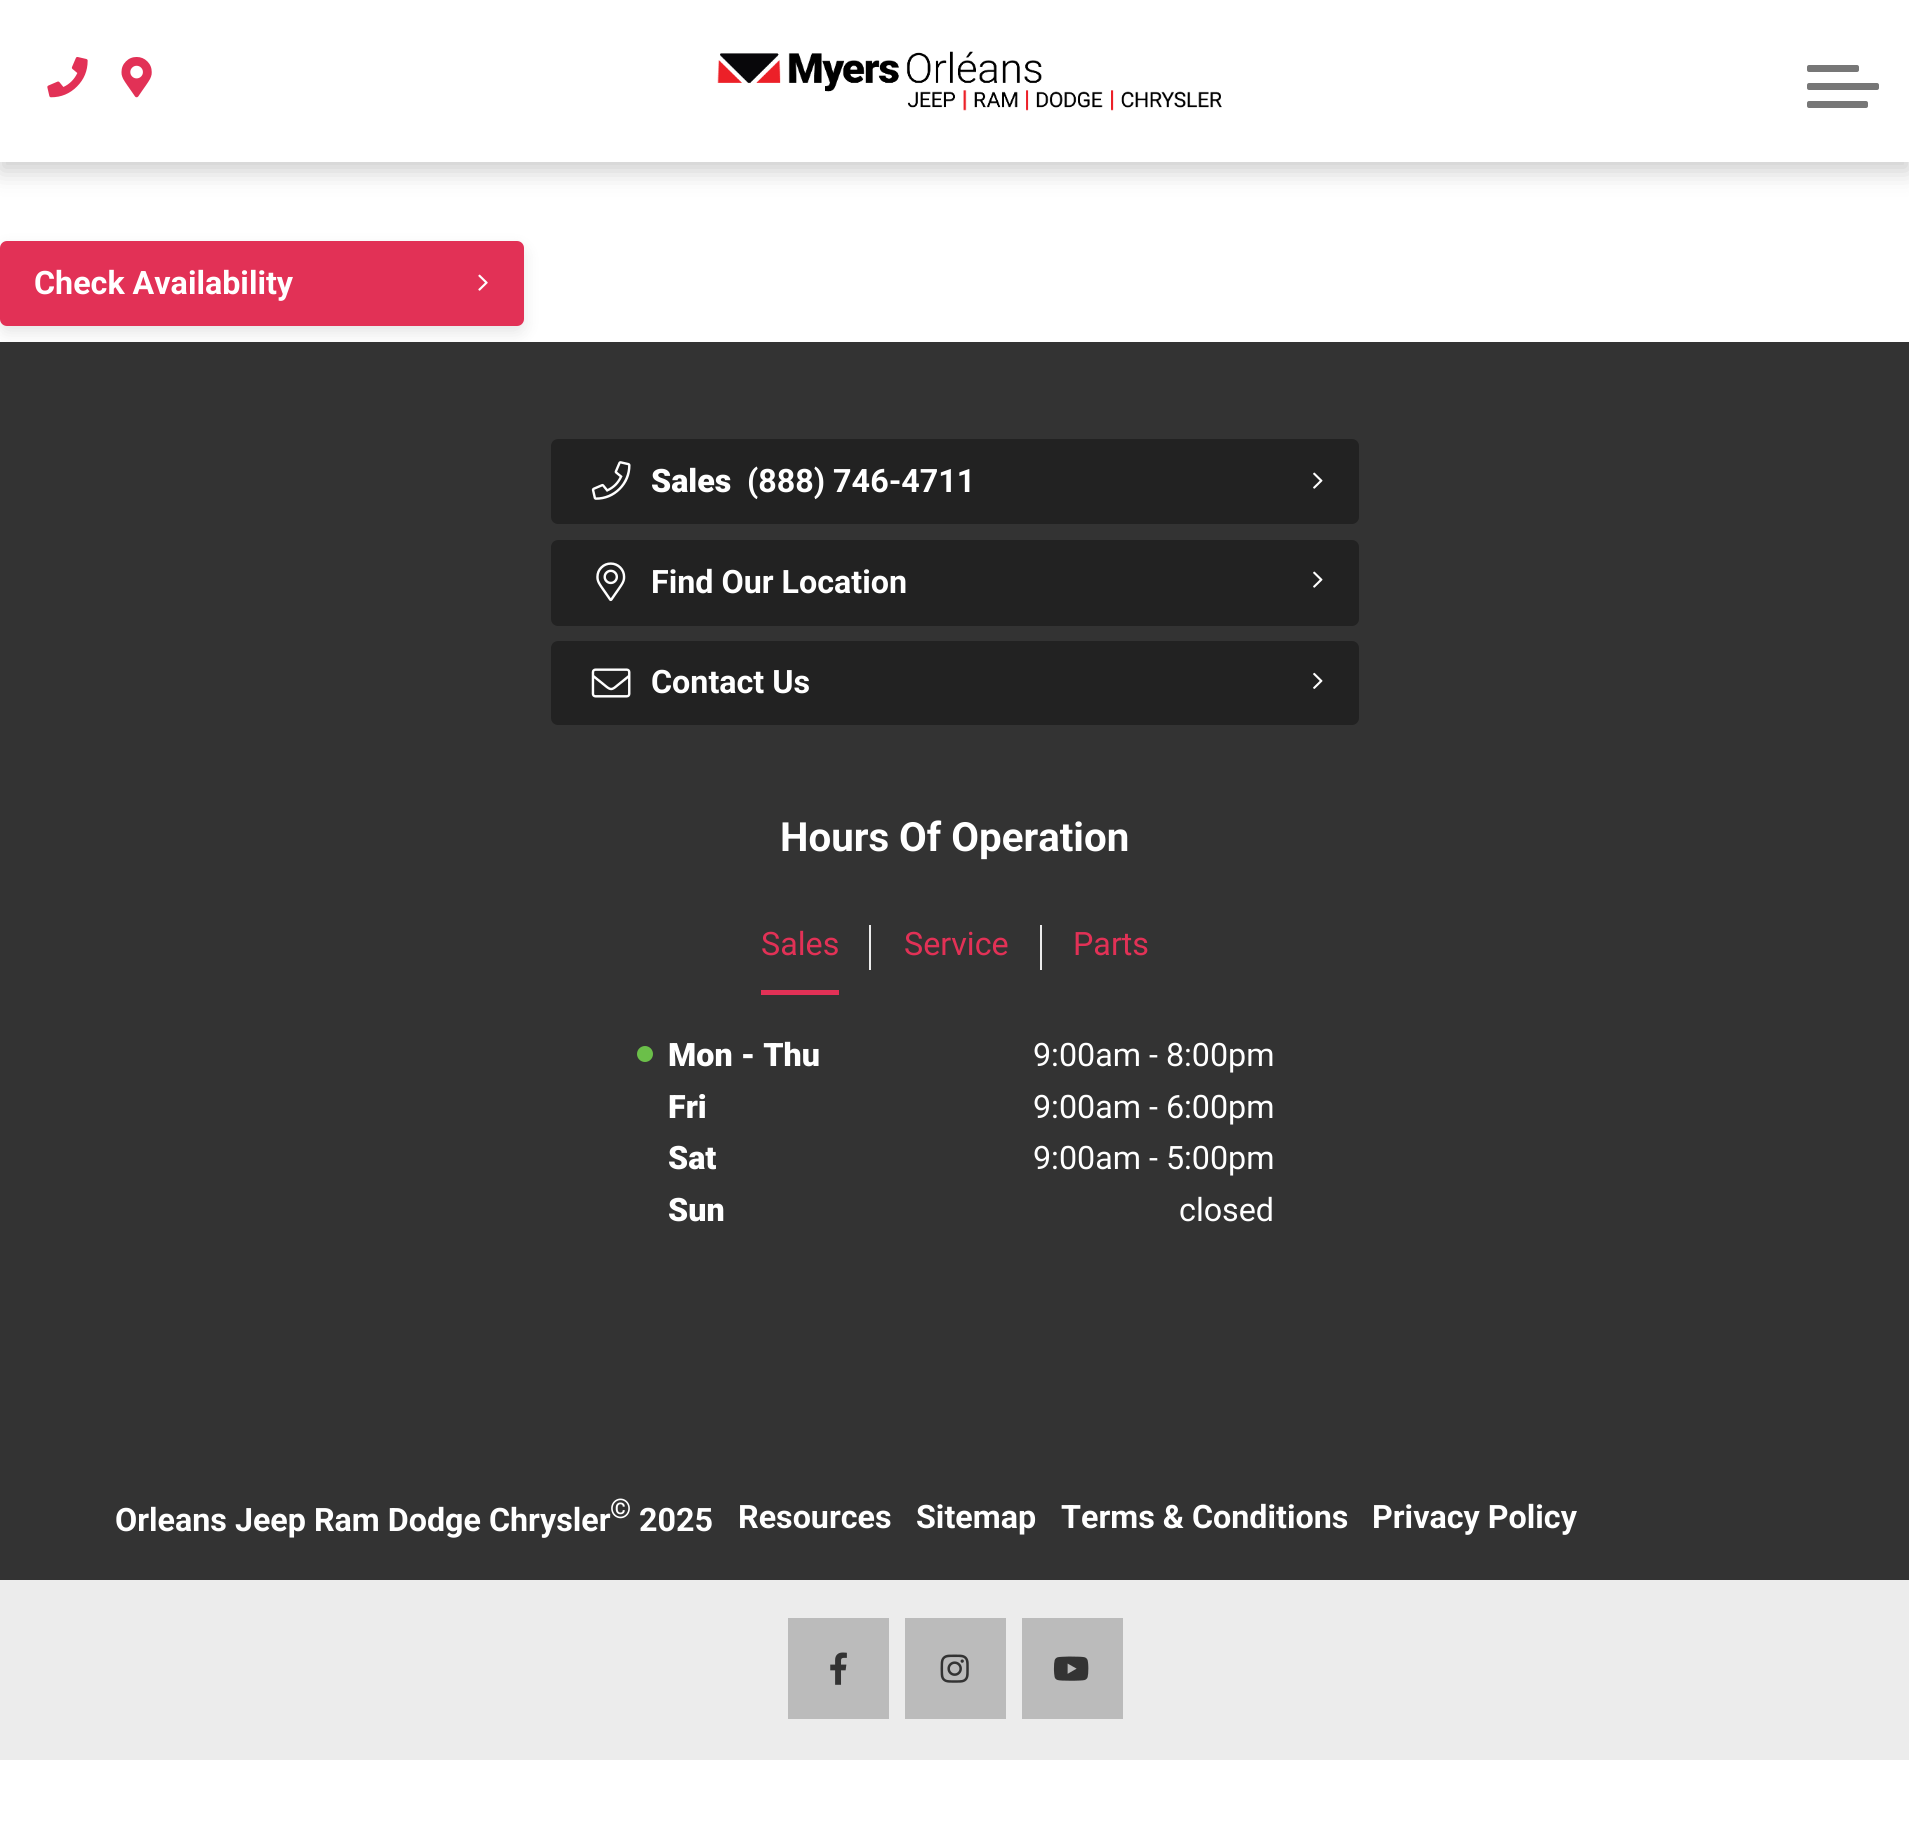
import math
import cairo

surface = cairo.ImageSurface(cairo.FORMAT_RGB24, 1909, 1836)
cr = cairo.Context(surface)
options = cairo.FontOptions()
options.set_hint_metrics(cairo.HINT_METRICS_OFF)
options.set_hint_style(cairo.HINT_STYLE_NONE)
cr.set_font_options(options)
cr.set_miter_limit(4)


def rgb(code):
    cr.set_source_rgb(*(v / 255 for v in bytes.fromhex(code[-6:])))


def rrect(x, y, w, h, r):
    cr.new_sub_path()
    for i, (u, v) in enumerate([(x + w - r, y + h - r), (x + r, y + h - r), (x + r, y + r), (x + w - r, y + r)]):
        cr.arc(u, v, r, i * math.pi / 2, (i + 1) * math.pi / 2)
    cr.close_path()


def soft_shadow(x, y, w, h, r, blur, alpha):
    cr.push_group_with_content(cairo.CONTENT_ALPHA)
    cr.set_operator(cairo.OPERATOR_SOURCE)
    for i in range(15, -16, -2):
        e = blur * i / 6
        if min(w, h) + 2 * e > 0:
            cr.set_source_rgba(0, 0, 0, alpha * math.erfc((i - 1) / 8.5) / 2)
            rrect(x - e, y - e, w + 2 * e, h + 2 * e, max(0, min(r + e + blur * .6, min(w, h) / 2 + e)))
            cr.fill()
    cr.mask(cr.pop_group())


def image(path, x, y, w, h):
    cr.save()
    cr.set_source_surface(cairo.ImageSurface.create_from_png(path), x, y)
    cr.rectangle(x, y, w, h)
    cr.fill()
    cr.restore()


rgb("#ffffff")
cr.paint()
rgb("#000000")
soft_shadow(0, 9, 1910, 162, 0, 12, 0.2)
rgb("#ffffff")
cr.rectangle(0, 0, 1909, 162)
cr.fill()
image("img/1.png", 47, 57, 41, 41)
image("img/2.png", 121, 57, 31, 41)
image("img/3.png", 717, 51, 505, 60)
rgb("#777777")
rrect(1807, 83, 72, 7, 2)
cr.fill()
rrect(1807, 65, 52, 7, 2)
cr.fill()
rrect(1807, 101, 61, 7, 2)
cr.fill()
rgb("#000000")
soft_shadow(0, 248, 524, 85, 7, 8, 0.1)
rgb("#e23156")
rrect(0, 241, 524, 85, 7)
cr.fill()
image("img/4.png", 478, 274, 10, 17)
rgb("#333333")
cr.rectangle(0, 342, 1909, 1031)
cr.fill()
rgb("#222222")
rrect(551, 439, 808, 85, 7)
cr.fill()
image("img/5.png", 591, 461, 40, 39)
image("img/6.png", 1313, 472, 10, 17)
rrect(551, 540, 808, 86, 7)
cr.fill()
image("img/7.png", 596, 562, 30, 40)
image("img/6.png", 1313, 571, 10, 17)
rrect(551, 641, 808, 84, 7)
cr.fill()
image("img/8.png", 591, 668, 40, 30)
image("img/9.png", 1313, 672, 10, 17)
for x, y, w, h, color in [
    (761, 990, 78, 5, "#e23156"),
    (869, 925, 2, 45, "#ececec"),
    (1040, 925, 2, 45, "#ececec"),
]:
    rgb(color)
    cr.rectangle(x, y, w, h)
    cr.fill()
rgb("#6bbf49")
cr.arc(645, 1054, 8, 0, 2 * math.pi)
cr.fill()
for x, y, w, h, color in [
    (0, 1373, 1909, 207, "#333333"),
    (0, 1580, 1909, 180, "#ececec"),
    (788, 1618, 101, 101, "#bbbbbb"),
]:
    rgb(color)
    cr.rectangle(x, y, w, h)
    cr.fill()
image("img/10.png", 830, 1652, 17, 33)
cr.rectangle(905, 1618, 101, 101)
cr.fill()
image("img/11.png", 940, 1654, 29, 29)
cr.rectangle(1022, 1618, 101, 101)
cr.fill()
image("img/12.png", 1053, 1656, 36, 25)
cr.select_font_face("Roboto", cairo.FONT_SLANT_NORMAL, cairo.FONT_WEIGHT_BOLD)
cr.set_font_size(32.25)
rgb("#ffffff")
cr.move_to(34, 294)
cr.show_text("Check Availability")
cr.select_font_face("Roboto Black")
cr.move_to(651, 492)
cr.show_text("Sales")
cr.select_font_face("Roboto", cairo.FONT_SLANT_NORMAL, cairo.FONT_WEIGHT_BOLD)
for x, y, s in [
    (747, 492, "(888) 746-4711"),
    (651, 593, "Find Our Location"),
    (651, 693, "Contact Us"),
]:
    cr.move_to(x, y)
    cr.show_text(s)
cr.set_font_size(40.25)
cr.move_to(780, 851)
cr.show_text("Hours Of Operation")
cr.select_font_face("Roboto")
cr.set_font_size(32.25)
rgb("#e23156")
for x, y, s in [
    (761, 955, "Sales"),
    (904, 955, "Service"),
    (1073, 955, "Parts"),
]:
    cr.move_to(x, y)
    cr.show_text(s)
cr.select_font_face("Roboto Black")
rgb("#ffffff")
cr.move_to(668, 1066)
cr.show_text("Mon - Thu")
cr.select_font_face("Roboto")
cr.move_to(1033, 1066)
cr.show_text("9:00am - 8:00pm")
cr.select_font_face("Roboto Black")
cr.move_to(668, 1118)
cr.show_text("Fri")
cr.select_font_face("Roboto")
cr.move_to(1033, 1118)
cr.show_text("9:00am - 6:00pm")
cr.select_font_face("Roboto Black")
cr.move_to(668, 1169)
cr.show_text("Sat")
cr.select_font_face("Roboto")
cr.move_to(1033, 1169)
cr.show_text("9:00am - 5:00pm")
cr.select_font_face("Roboto Black")
cr.move_to(668, 1221)
cr.show_text("Sun")
cr.select_font_face("Roboto")
cr.move_to(1179, 1221)
cr.show_text("closed")
cr.select_font_face("Roboto", cairo.FONT_SLANT_NORMAL, cairo.FONT_WEIGHT_BOLD)
cr.move_to(115, 1531)
cr.show_text("Orleans Jeep Ram Dodge Chrysler")
cr.set_font_size(27)
cr.move_to(610, 1518)
cr.show_text("©")
cr.set_font_size(32.25)
for x, y, s in [
    (639, 1531, "2025"),
    (738, 1528, "Resources"),
    (916, 1528, "Sitemap"),
    (1061, 1528, "Terms & Conditions"),
    (1372, 1528, "Privacy Policy"),
]:
    cr.move_to(x, y)
    cr.show_text(s)
surface.write_to_png("page.png")
